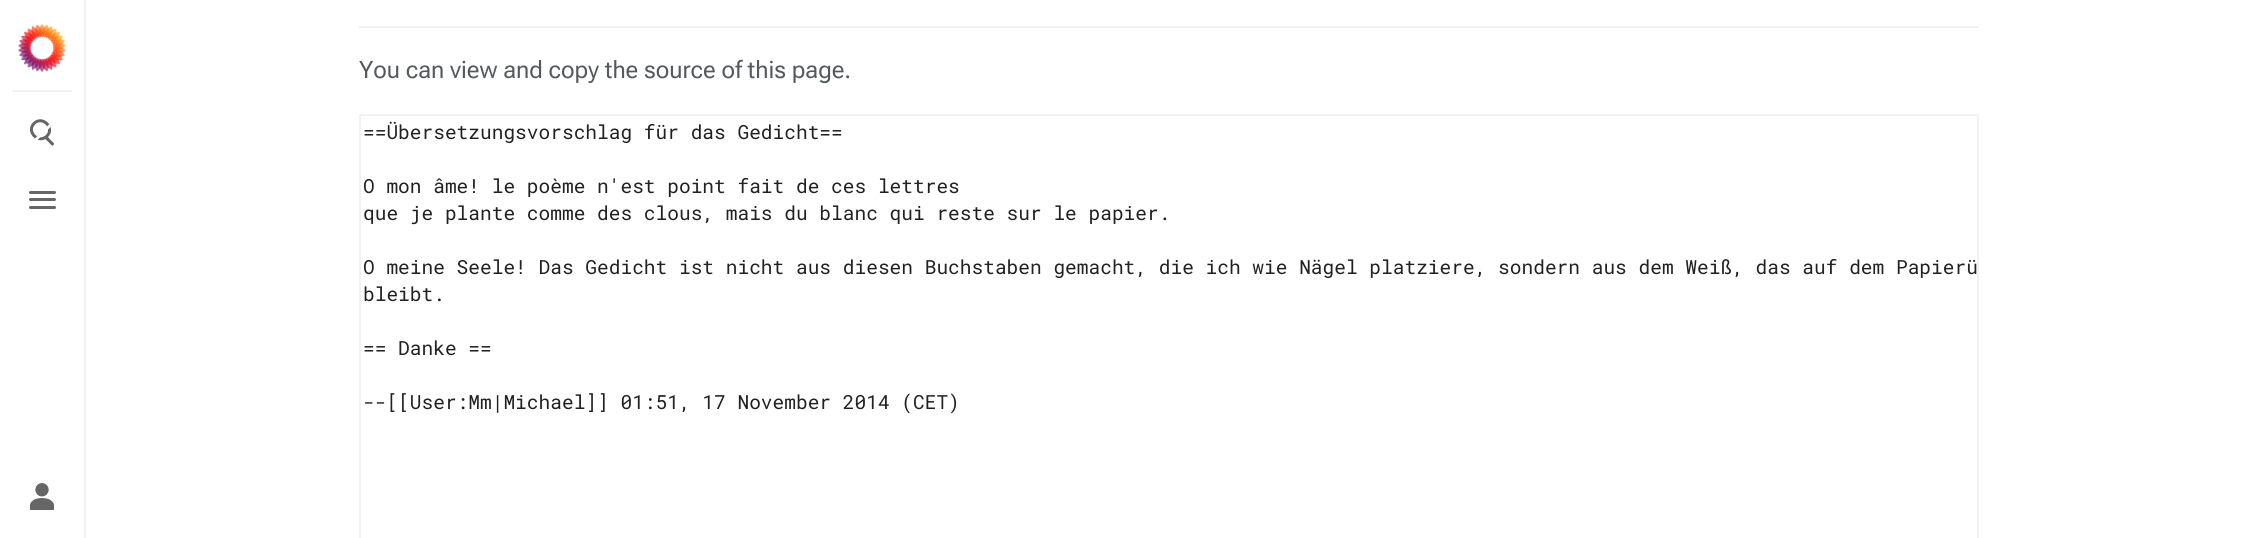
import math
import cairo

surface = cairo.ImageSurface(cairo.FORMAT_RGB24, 2252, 538)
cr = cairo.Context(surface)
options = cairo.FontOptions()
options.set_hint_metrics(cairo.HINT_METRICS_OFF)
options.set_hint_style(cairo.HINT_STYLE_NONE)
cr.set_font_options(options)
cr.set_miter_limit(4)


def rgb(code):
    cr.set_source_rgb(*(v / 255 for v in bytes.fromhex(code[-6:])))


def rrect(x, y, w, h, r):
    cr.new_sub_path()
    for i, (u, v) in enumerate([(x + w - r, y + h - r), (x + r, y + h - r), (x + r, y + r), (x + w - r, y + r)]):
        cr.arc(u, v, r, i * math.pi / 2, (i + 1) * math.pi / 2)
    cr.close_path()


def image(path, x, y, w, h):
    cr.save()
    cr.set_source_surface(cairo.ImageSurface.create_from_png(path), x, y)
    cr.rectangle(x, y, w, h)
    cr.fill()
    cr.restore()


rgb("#ffffff")
cr.paint()
rgb("#f2f2f2")
cr.rectangle(84, 0, 2, 538)
cr.fill()
cr.rectangle(12, 90, 60, 2)
cr.fill()
image("img/1.png", 18, 24, 48, 48)
rgb("#666666")
cr.new_path()
cr.move_to(45.5, 137)
cr.curve_to(47, 135, 49.5, 139, 50.5, 140)
cr.curve_to(51.5, 141, 55.5, 143.5, 53.5, 145)
cr.curve_to(52, 147, 49.5, 143, 48.5, 142)
cr.curve_to(47.5, 141, 43.5, 138.5, 45.5, 137)
cr.close_path()
cr.fill()
cr.new_path()
cr.move_to(34, 123.5)
cr.curve_to(42.5, 115, 55, 128, 47, 136)
cr.curve_to(38.5, 144.5, 26, 131.5, 34, 123.5)
cr.close_path()
cr.set_line_width(3)
cr.stroke()
rgb("#ffffff")
cr.new_path()
cr.move_to(33.5, 142)
cr.curve_to(33, 141.5, 33, 140.5, 33.5, 140)
cr.line_to(48.5, 125)
cr.curve_to(49, 124.5, 50, 124.5, 50.5, 125)
cr.curve_to(51, 125.5, 51, 126.5, 50.5, 127)
cr.line_to(35.5, 142)
cr.curve_to(35, 142.5, 34, 142.5, 33.5, 142)
cr.close_path()
cr.fill()
rgb("#666666")
rrect(29, 191, 27, 3, 1.5)
cr.fill()
rrect(29, 198, 27, 3, 1.5)
cr.fill()
rrect(29, 206, 27, 3, 1.5)
cr.fill()
image("img/2.png", 30, 483, 24, 27)
rgb("#f2f2f2")
cr.rectangle(359, 26, 1620, 2)
cr.fill()
cr.rectangle(360, 115, 1618, 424)
cr.set_line_width(2)
cr.stroke()
cr.select_font_face("Roboto Flex")
cr.set_font_size(24)
rgb("#54595d")
cr.move_to(359, 78)
cr.show_text("You can view and copy the source of this page.")
cr.select_font_face("Roboto Mono")
cr.set_font_size(19.5)
rgb("#202122")
for x, y, s in [
    (363, 139, "==Übersetzungsvorschlag für das Gedicht=="),
    (363, 193, "O mon âme! le poème n'est point fait de ces lettres"),
    (363, 220, "que je plante comme des clous, mais du blanc qui reste sur le papier."),
    (363, 274, "O meine Seele! Das Gedicht ist nicht aus diesen Buchstaben gemacht, die ich wie Nägel platziere, sondern aus dem Weiß, das auf dem Papierü"),
    (363, 301, "bleibt."),
    (363, 355, "== Danke =="),
    (363, 409, "--[[User:Mm|Michael]] 01:51, 17 November 2014 (CET)"),
]:
    cr.move_to(x, y)
    cr.show_text(s)
surface.write_to_png("page.png")
